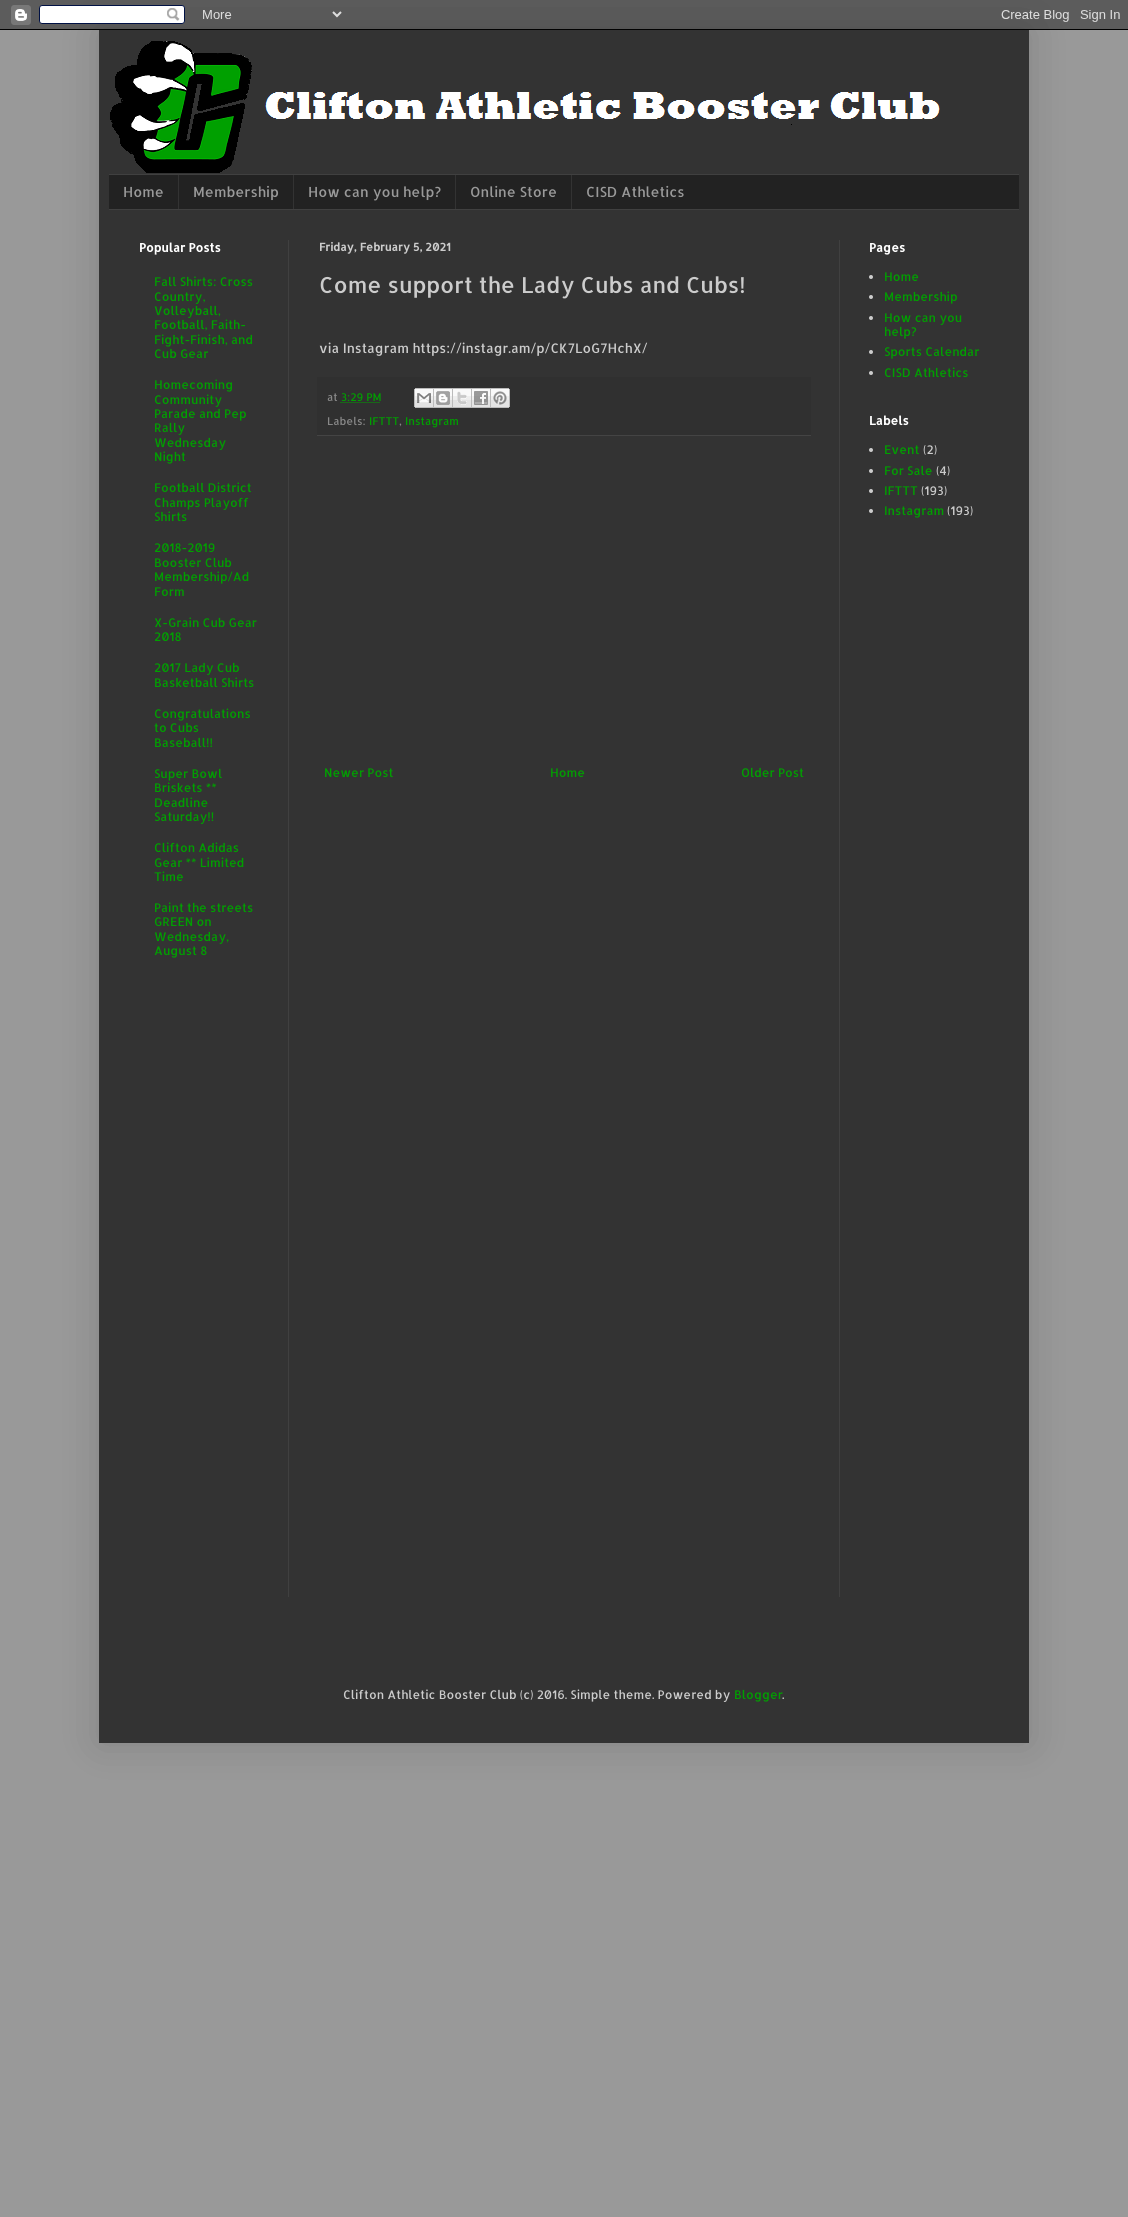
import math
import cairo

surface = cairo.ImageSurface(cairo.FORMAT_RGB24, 1128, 2217)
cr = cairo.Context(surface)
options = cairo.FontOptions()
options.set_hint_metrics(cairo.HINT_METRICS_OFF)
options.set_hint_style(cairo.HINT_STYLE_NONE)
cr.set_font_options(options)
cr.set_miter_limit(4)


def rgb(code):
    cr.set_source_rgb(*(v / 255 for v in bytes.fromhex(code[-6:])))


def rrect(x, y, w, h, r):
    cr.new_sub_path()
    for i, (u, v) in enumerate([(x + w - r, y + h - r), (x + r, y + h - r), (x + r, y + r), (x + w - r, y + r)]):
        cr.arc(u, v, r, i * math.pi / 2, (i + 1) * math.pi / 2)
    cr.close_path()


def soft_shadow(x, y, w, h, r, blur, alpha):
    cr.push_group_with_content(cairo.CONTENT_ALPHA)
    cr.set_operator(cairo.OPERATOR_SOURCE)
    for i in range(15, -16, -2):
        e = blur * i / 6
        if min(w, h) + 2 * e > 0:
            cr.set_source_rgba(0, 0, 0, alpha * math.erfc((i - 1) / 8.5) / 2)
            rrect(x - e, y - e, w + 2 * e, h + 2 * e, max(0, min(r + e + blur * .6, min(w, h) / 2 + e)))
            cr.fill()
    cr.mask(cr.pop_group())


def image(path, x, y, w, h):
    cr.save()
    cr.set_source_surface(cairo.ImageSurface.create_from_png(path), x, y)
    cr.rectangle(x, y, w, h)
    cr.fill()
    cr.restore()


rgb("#999999")
cr.paint()
rgb("#000000")
soft_shadow(99, 30, 930, 1713, 0, 20, 0.15)
image("img/1.png", 0, 0, 1128, 30)
rgb("#333333")
cr.rectangle(99, 30, 930, 1713)
cr.fill()
image("img/2.png", 110, 41, 830, 132)
for x, y, w, h, color in [
    (109, 175, 910, 34, "#222222"),
    (109, 174, 910, 1, "#404040"),
    (109, 209, 910, 1, "#404040"),
    (178, 175, 1, 34, "#333333"),
    (293, 175, 1, 34, "#333333"),
    (455, 175, 1, 34, "#333333"),
    (571, 175, 1, 34, "#333333"),
    (288, 240, 1, 1357, "#404040"),
    (839, 240, 1, 1357, "#404040"),
    (317, 377, 494, 58, "#303030"),
    (317, 435, 494, 1, "#444444"),
]:
    rgb(color)
    cr.rectangle(x, y, w, h)
    cr.fill()
cr.new_path()
cr.move_to(340.5, 402.5)
cr.line_to(380, 402.5)
rgb("#00a000")
cr.set_line_width(1)
cr.set_dash([1, 1])
cr.stroke()
image("img/3.png", 414, 388, 20, 20)
image("img/4.png", 434, 388, 19, 20)
image("img/5.png", 453, 388, 19, 20)
image("img/6.png", 472, 388, 19, 20)
image("img/7.png", 491, 388, 19, 20)
rgb("#cccccc")
cr.arc(871, 277, 2, 0, 2 * math.pi)
cr.fill()
cr.arc(871, 297, 2, 0, 2 * math.pi)
cr.fill()
cr.arc(871, 318, 2, 0, 2 * math.pi)
cr.fill()
cr.arc(871, 352, 2, 0, 2 * math.pi)
cr.fill()
cr.arc(871, 373, 2, 0, 2 * math.pi)
cr.fill()
cr.arc(871, 450, 2, 0, 2 * math.pi)
cr.fill()
cr.arc(871, 471, 2, 0, 2 * math.pi)
cr.fill()
cr.arc(871, 491, 2, 0, 2 * math.pi)
cr.fill()
cr.arc(871, 511, 2, 0, 2 * math.pi)
cr.fill()
cr.select_font_face("Allerta")
cr.set_font_size(14)
rgb("#999999")
for x, y, s in [
    (123, 197, "Home"),
    (193, 197, "Membership"),
    (308, 197, "How can you help?"),
    (470, 197, "Online Store"),
    (586, 197, "CISD Athletics"),
]:
    cr.move_to(x, y)
    cr.show_text(s)
cr.select_font_face("Allerta", cairo.FONT_SLANT_NORMAL, cairo.FONT_WEIGHT_BOLD)
cr.set_font_size(12)
rgb("#ffffff")
cr.move_to(139, 252)
cr.show_text("Popular Posts")
cr.select_font_face("Allerta")
rgb("#00a000")
for x, y, s in [
    (154, 286, "Fall Shirts: Cross"),
    (154, 301, "Country,"),
    (154, 315, "Volleyball,"),
    (154, 329, "Football, Faith-"),
    (154, 344, "Fight-Finish, and"),
    (154, 358, "Cub Gear"),
    (154, 389, "Homecoming"),
    (154, 404, "Community"),
    (154, 418, "Parade and Pep"),
    (154, 432, "Rally"),
    (154, 447, "Wednesday"),
    (154, 461, "Night"),
    (154, 492, "Football District"),
    (154, 507, "Champs Playoff"),
    (154, 521, "Shirts"),
    (154, 552, "2018-2019"),
    (154, 567, "Booster Club"),
    (154, 581, "Membership/Ad"),
    (154, 596, "Form"),
    (154, 627, "X-Grain Cub Gear"),
    (154, 641, "2018"),
    (154, 672, "2017 Lady Cub"),
    (154, 687, "Basketball Shirts"),
    (154, 718, "Congratulations"),
    (154, 732, "to Cubs"),
    (154, 747, "Baseball!!"),
    (154, 778, "Super Bowl"),
    (154, 792, "Briskets **"),
    (154, 807, "Deadline"),
    (154, 821, "Saturday!!"),
    (154, 852, "Clifton Adidas"),
    (154, 867, "Gear ** Limited"),
    (154, 881, "Time"),
    (154, 912, "Paint the streets"),
    (154, 926, "GREEN on"),
    (154, 941, "Wednesday,"),
    (154, 955, "August 8"),
]:
    cr.move_to(x, y)
    cr.show_text(s)
cr.select_font_face("Allerta", cairo.FONT_SLANT_NORMAL, cairo.FONT_WEIGHT_BOLD)
cr.set_font_size(11)
rgb("#cccccc")
cr.move_to(319, 251)
cr.show_text("Friday, February 5, 2021")
cr.select_font_face("Allerta")
cr.set_font_size(22)
cr.move_to(319, 293)
cr.show_text("Come support the Lady Cubs and Cubs!")
cr.set_font_size(13.2)
cr.move_to(319, 353)
cr.show_text("via Instagram https://instagr.am/p/CK7LoG7HchX/")
cr.set_font_size(10.75)
rgb("#888888")
cr.move_to(327, 401)
cr.show_text("at")
rgb("#00a000")
cr.move_to(341, 401)
cr.show_text("3:29 PM")
rgb("#888888")
cr.move_to(327, 425)
cr.show_text("Labels:")
rgb("#00a000")
cr.move_to(369, 425)
cr.show_text("IFTTT")
rgb("#888888")
cr.move_to(399, 425)
cr.show_text(",")
rgb("#00a000")
cr.move_to(405, 425)
cr.show_text("Instagram")
cr.set_font_size(12)
for x, y, s in [
    (324, 777, "Newer Post"),
    (550, 777, "Home"),
    (741, 777, "Older Post"),
]:
    cr.move_to(x, y)
    cr.show_text(s)
cr.select_font_face("Allerta", cairo.FONT_SLANT_NORMAL, cairo.FONT_WEIGHT_BOLD)
rgb("#ffffff")
cr.move_to(869, 252)
cr.show_text("Pages")
cr.select_font_face("Allerta")
rgb("#00a000")
for x, y, s in [
    (884, 281, "Home"),
    (884, 301, "Membership"),
    (884, 322, "How can you"),
    (884, 336, "help?"),
    (884, 356, "Sports Calendar"),
    (884, 377, "CISD Athletics"),
]:
    cr.move_to(x, y)
    cr.show_text(s)
cr.select_font_face("Allerta", cairo.FONT_SLANT_NORMAL, cairo.FONT_WEIGHT_BOLD)
rgb("#ffffff")
cr.move_to(869, 425)
cr.show_text("Labels")
cr.select_font_face("Allerta")
rgb("#00a000")
cr.move_to(884, 454)
cr.show_text("Event")
rgb("#cccccc")
cr.move_to(923, 454)
cr.show_text("(2)")
rgb("#00a000")
cr.move_to(884, 475)
cr.show_text("For Sale")
rgb("#cccccc")
cr.move_to(936, 475)
cr.show_text("(4)")
rgb("#00a000")
cr.move_to(884, 495)
cr.show_text("IFTTT")
rgb("#cccccc")
cr.move_to(921, 495)
cr.show_text("(193)")
rgb("#00a000")
cr.move_to(884, 515)
cr.show_text("Instagram")
rgb("#cccccc")
cr.move_to(947, 515)
cr.show_text("(193)")
cr.move_to(343, 1699)
cr.show_text("Clifton Athletic Booster Club (c) 2016. Simple theme. Powered by")
rgb("#00a000")
cr.move_to(734, 1699)
cr.show_text("Blogger")
rgb("#cccccc")
cr.move_to(782, 1699)
cr.show_text(".")
surface.write_to_png("page.png")
